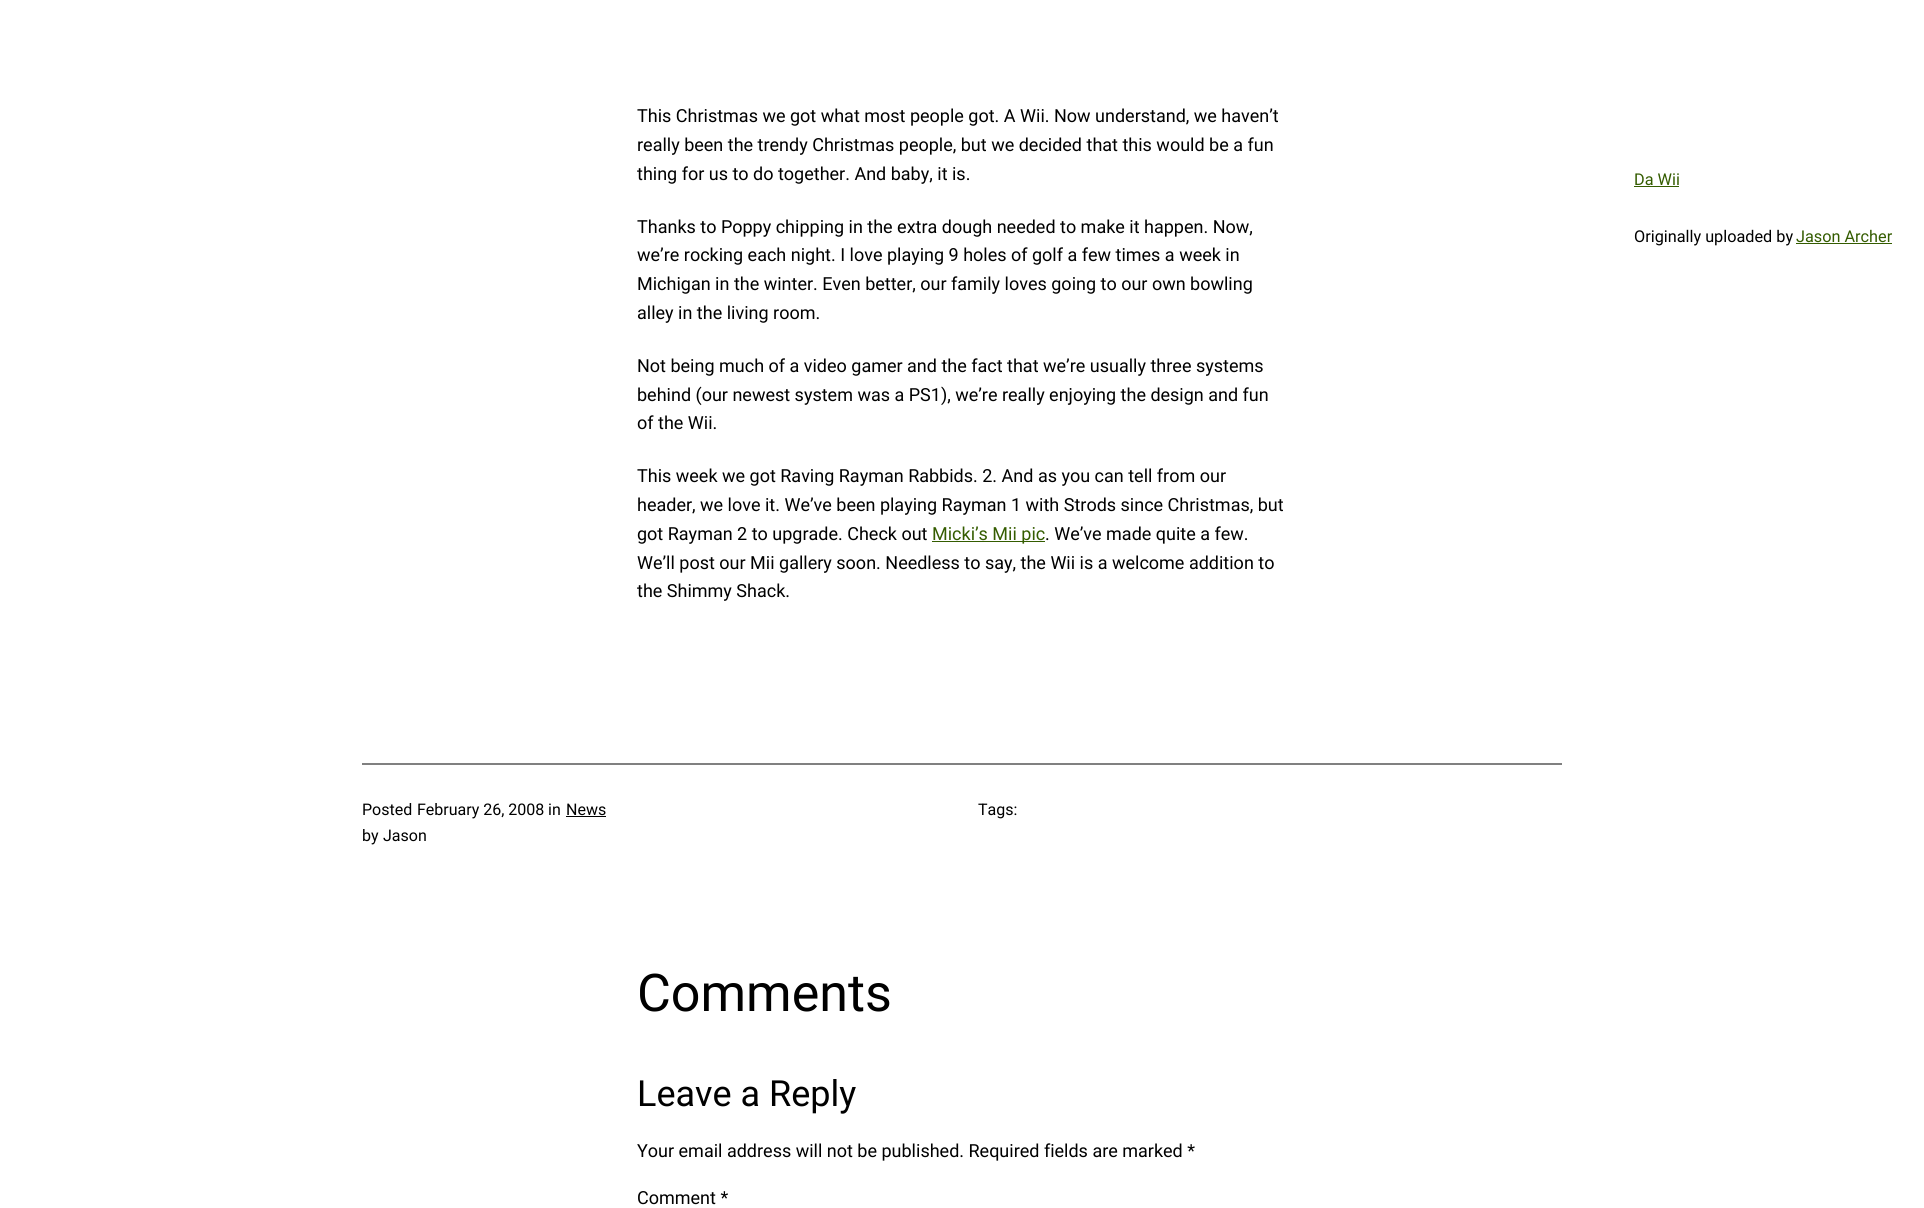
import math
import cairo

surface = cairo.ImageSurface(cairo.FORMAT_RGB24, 1924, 1208)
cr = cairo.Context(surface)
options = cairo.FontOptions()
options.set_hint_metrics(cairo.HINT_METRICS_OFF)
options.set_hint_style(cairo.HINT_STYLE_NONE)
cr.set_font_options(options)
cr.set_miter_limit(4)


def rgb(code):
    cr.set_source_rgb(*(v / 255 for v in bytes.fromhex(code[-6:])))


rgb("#ffffff")
cr.paint()
for x, y, w, h, color in [
    (1634, 186, 45, 1, "#345c00"),
    (1796, 243, 96, 1, "#345c00"),
    (932, 541, 113, 1, "#345c00"),
    (362, 763, 1200, 2, "#808080"),
    (566, 816, 40, 1, "#000000"),
]:
    rgb(color)
    cr.rectangle(x, y, w, h)
    cr.fill()
cr.select_font_face("Roboto")
cr.set_font_size(18)
for x, y, s in [
    (637, 122, "This Christmas we got what most people got. A Wii. Now understand, we haven’t"),
    (637, 151, "really been the trendy Christmas people, but we decided that this would be a fun"),
    (637, 180, "thing for us to do together. And baby, it is."),
]:
    cr.move_to(x, y)
    cr.show_text(s)
cr.set_font_size(16.25)
rgb("#345c00")
cr.move_to(1634, 185)
cr.show_text("Da Wii")
rgb("#000000")
cr.move_to(1634, 242)
cr.show_text("Originally uploaded by")
rgb("#345c00")
cr.move_to(1796, 242)
cr.show_text("Jason Archer")
cr.set_font_size(18)
rgb("#000000")
for x, y, s in [
    (637, 233, "Thanks to Poppy chipping in the extra dough needed to make it happen. Now,"),
    (637, 261, "we’re rocking each night. I love playing 9 holes of golf a few times a week in"),
    (637, 290, "Michigan in the winter. Even better, our family loves going to our own bowling"),
    (637, 319, "alley in the living room."),
    (637, 372, "Not being much of a video gamer and the fact that we’re usually three systems"),
    (637, 401, "behind (our newest system was a PS1), we’re really enjoying the design and fun"),
    (637, 429, "of the Wii."),
    (637, 482, "This week we got Raving Rayman Rabbids. 2. And as you can tell from our"),
    (637, 511, "header, we love it. We’ve been playing Rayman 1 with Strods since Christmas, but"),
    (637, 540, "got Rayman 2 to upgrade. Check out"),
]:
    cr.move_to(x, y)
    cr.show_text(s)
rgb("#345c00")
cr.move_to(932, 540)
cr.show_text("Micki’s Mii pic")
rgb("#000000")
for x, y, s in [
    (1045, 540, ". We’ve made quite a few."),
    (637, 569, "We’ll post our Mii gallery soon. Needless to say, the Wii is a welcome addition to"),
    (637, 597, "the Shimmy Shack."),
]:
    cr.move_to(x, y)
    cr.show_text(s)
cr.set_font_size(16)
for x, y, s in [
    (362, 815, "Posted"),
    (417, 815, "February 26, 2008"),
    (548, 815, "in"),
    (566, 815, "News"),
    (362, 841, "by"),
    (383, 841, "Jason"),
    (978, 815, "Tags:"),
]:
    cr.move_to(x, y)
    cr.show_text(s)
cr.set_font_size(52)
cr.move_to(637, 1011)
cr.show_text("Comments")
cr.set_font_size(36)
cr.move_to(637, 1106)
cr.show_text("Leave a Reply")
cr.set_font_size(18)
cr.move_to(637, 1157)
cr.show_text("Your email address will not be published. Required fields are marked *")
cr.move_to(637, 1204)
cr.show_text("Comment *")
surface.write_to_png("page.png")
